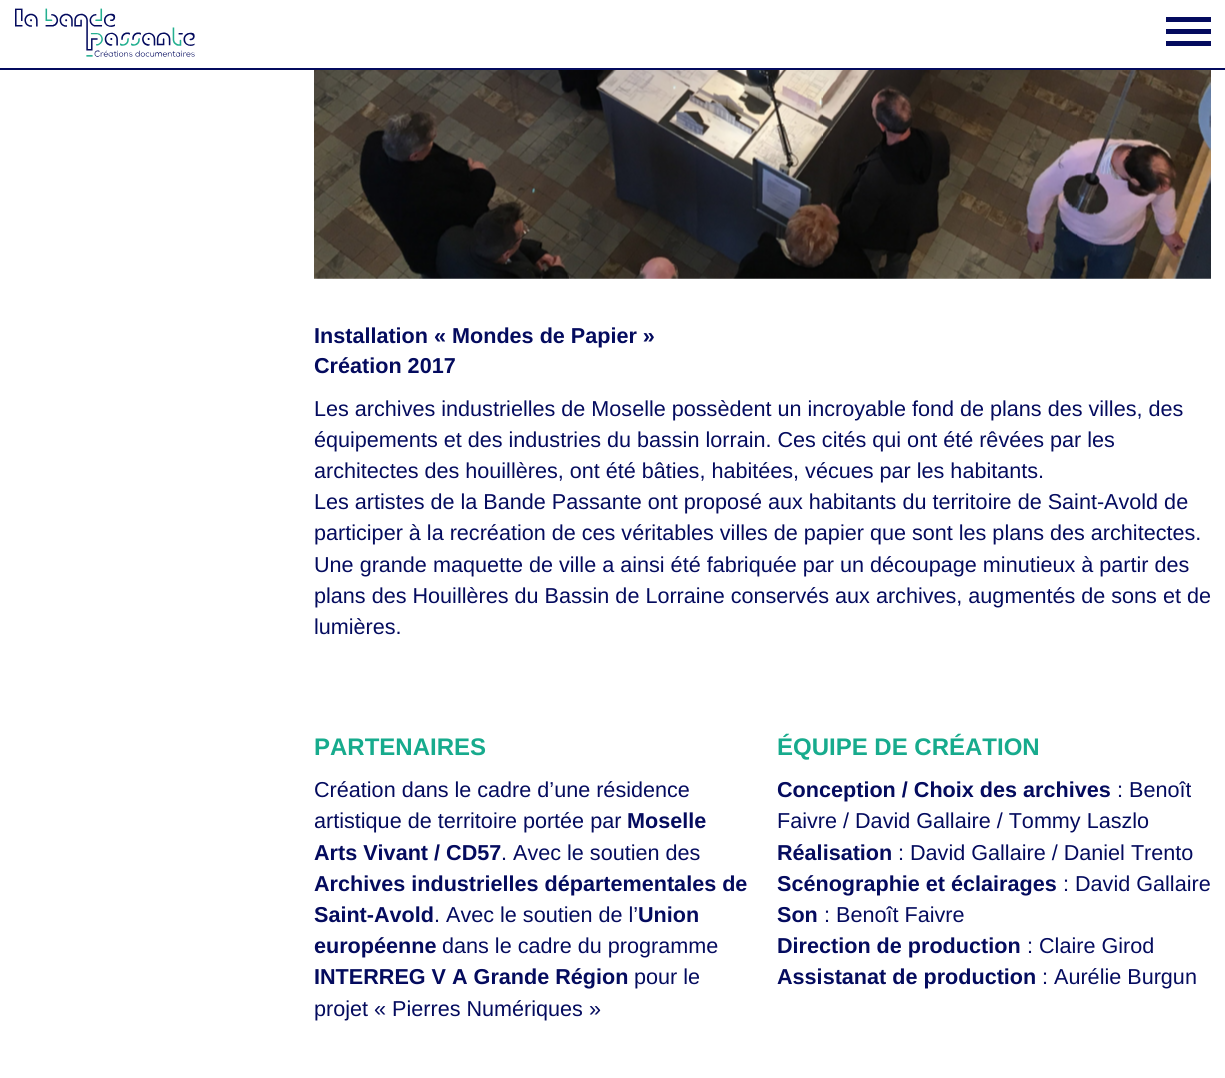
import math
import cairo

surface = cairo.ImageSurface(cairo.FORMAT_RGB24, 1225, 1078)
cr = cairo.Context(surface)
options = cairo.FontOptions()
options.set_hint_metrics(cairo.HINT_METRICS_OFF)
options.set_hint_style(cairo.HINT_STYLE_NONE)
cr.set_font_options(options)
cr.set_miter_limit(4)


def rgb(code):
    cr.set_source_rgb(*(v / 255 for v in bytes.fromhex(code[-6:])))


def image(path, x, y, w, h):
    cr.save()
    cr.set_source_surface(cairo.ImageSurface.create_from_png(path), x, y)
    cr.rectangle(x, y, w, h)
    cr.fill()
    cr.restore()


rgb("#ffffff")
cr.paint()
rgb("#040b5e")
cr.rectangle(0, 68, 1225, 2)
cr.fill()
image("img/1.png", 15, 8, 180, 49)
for x, y, w, h, color in [
    (1166, 17, 45, 5, "#040b5e"),
    (1166, 29, 45, 5, "#040b5e"),
    (1166, 41, 45, 5, "#040b5e"),
]:
    rgb(color)
    cr.rectangle(x, y, w, h)
    cr.fill()
image("img/2.png", 314, 70, 897, 209)
cr.select_font_face("Liberation Sans", cairo.FONT_SLANT_NORMAL, cairo.FONT_WEIGHT_BOLD)
cr.set_font_size(21.6)
cr.move_to(314, 343)
cr.show_text("Installation « Mondes de Papier »")
cr.move_to(314, 373)
cr.show_text("Création 2017")
cr.select_font_face("Liberation Sans")
for x, y, s in [
    (314, 416, "Les archives industrielles de Moselle possèdent un incroyable fond de plans des villes, des"),
    (314, 447, "équipements et des industries du bassin lorrain. Ces cités qui ont été rêvées par les"),
    (314, 478, "architectes des houillères, ont été bâties, habitées, vécues par les habitants."),
    (314, 509, "Les artistes de la Bande Passante ont proposé aux habitants du territoire de Saint-Avold de"),
    (314, 540, "participer à la recréation de ces véritables villes de papier que sont les plans des architectes."),
    (314, 572, "Une grande maquette de ville a ainsi été fabriquée par un découpage minutieux à partir des"),
    (314, 603, "plans des Houillères du Bassin de Lorraine conservés aux archives, augmentés de sons et de"),
    (314, 634, "lumières."),
]:
    cr.move_to(x, y)
    cr.show_text(s)
cr.select_font_face("Liberation Sans", cairo.FONT_SLANT_NORMAL, cairo.FONT_WEIGHT_BOLD)
cr.set_font_size(24)
rgb("#17ab8d")
cr.move_to(314, 755)
cr.show_text("PARTENAIRES")
cr.select_font_face("Liberation Sans")
cr.set_font_size(21.6)
rgb("#040b5e")
cr.move_to(314, 797)
cr.show_text("Création dans le cadre d’une résidence")
cr.move_to(314, 828)
cr.show_text("artistique de territoire portée par")
cr.select_font_face("Liberation Sans", cairo.FONT_SLANT_NORMAL, cairo.FONT_WEIGHT_BOLD)
cr.move_to(627, 828)
cr.show_text("Moselle")
cr.move_to(314, 860)
cr.show_text("Arts Vivant / CD57")
cr.select_font_face("Liberation Sans")
cr.move_to(501, 860)
cr.show_text(". Avec le soutien des")
cr.select_font_face("Liberation Sans", cairo.FONT_SLANT_NORMAL, cairo.FONT_WEIGHT_BOLD)
cr.move_to(314, 891)
cr.show_text("Archives industrielles départementales de")
cr.move_to(314, 922)
cr.show_text("Saint-Avold")
cr.select_font_face("Liberation Sans")
cr.move_to(434, 922)
cr.show_text(". Avec le soutien de l’")
cr.select_font_face("Liberation Sans", cairo.FONT_SLANT_NORMAL, cairo.FONT_WEIGHT_BOLD)
cr.move_to(638, 922)
cr.show_text("Union")
cr.move_to(314, 953)
cr.show_text("européenne")
cr.select_font_face("Liberation Sans")
cr.move_to(442, 953)
cr.show_text("dans le cadre du programme")
cr.select_font_face("Liberation Sans", cairo.FONT_SLANT_NORMAL, cairo.FONT_WEIGHT_BOLD)
cr.move_to(314, 984)
cr.show_text("INTERREG V A Grande Région")
cr.select_font_face("Liberation Sans")
cr.move_to(634, 984)
cr.show_text("pour le")
cr.move_to(314, 1016)
cr.show_text("projet « Pierres Numériques »")
cr.select_font_face("Liberation Sans", cairo.FONT_SLANT_NORMAL, cairo.FONT_WEIGHT_BOLD)
cr.set_font_size(24)
rgb("#17ab8d")
cr.move_to(777, 755)
cr.show_text("ÉQUIPE DE CRÉATION")
cr.set_font_size(21.6)
rgb("#040b5e")
cr.move_to(777, 797)
cr.show_text("Conception / Choix des archives")
cr.select_font_face("Liberation Sans")
cr.move_to(1117, 797)
cr.show_text(": Benoît")
cr.move_to(777, 828)
cr.show_text("Faivre / David Gallaire / Tommy Laszlo")
cr.select_font_face("Liberation Sans", cairo.FONT_SLANT_NORMAL, cairo.FONT_WEIGHT_BOLD)
cr.move_to(777, 860)
cr.show_text("Réalisation")
cr.select_font_face("Liberation Sans")
cr.move_to(898, 860)
cr.show_text(": David Gallaire / Daniel Trento")
cr.select_font_face("Liberation Sans", cairo.FONT_SLANT_NORMAL, cairo.FONT_WEIGHT_BOLD)
cr.move_to(777, 891)
cr.show_text("Scénographie et éclairages")
cr.select_font_face("Liberation Sans")
cr.move_to(1063, 891)
cr.show_text(": David Gallaire")
cr.select_font_face("Liberation Sans", cairo.FONT_SLANT_NORMAL, cairo.FONT_WEIGHT_BOLD)
cr.move_to(777, 922)
cr.show_text("Son")
cr.select_font_face("Liberation Sans")
cr.move_to(824, 922)
cr.show_text(": Benoît Faivre")
cr.select_font_face("Liberation Sans", cairo.FONT_SLANT_NORMAL, cairo.FONT_WEIGHT_BOLD)
cr.move_to(777, 953)
cr.show_text("Direction de production")
cr.select_font_face("Liberation Sans")
cr.move_to(1027, 953)
cr.show_text(": Claire Girod")
cr.select_font_face("Liberation Sans", cairo.FONT_SLANT_NORMAL, cairo.FONT_WEIGHT_BOLD)
cr.move_to(777, 984)
cr.show_text("Assistanat de production")
cr.select_font_face("Liberation Sans")
cr.move_to(1042, 984)
cr.show_text(": Aurélie Burgun")
surface.write_to_png("page.png")
